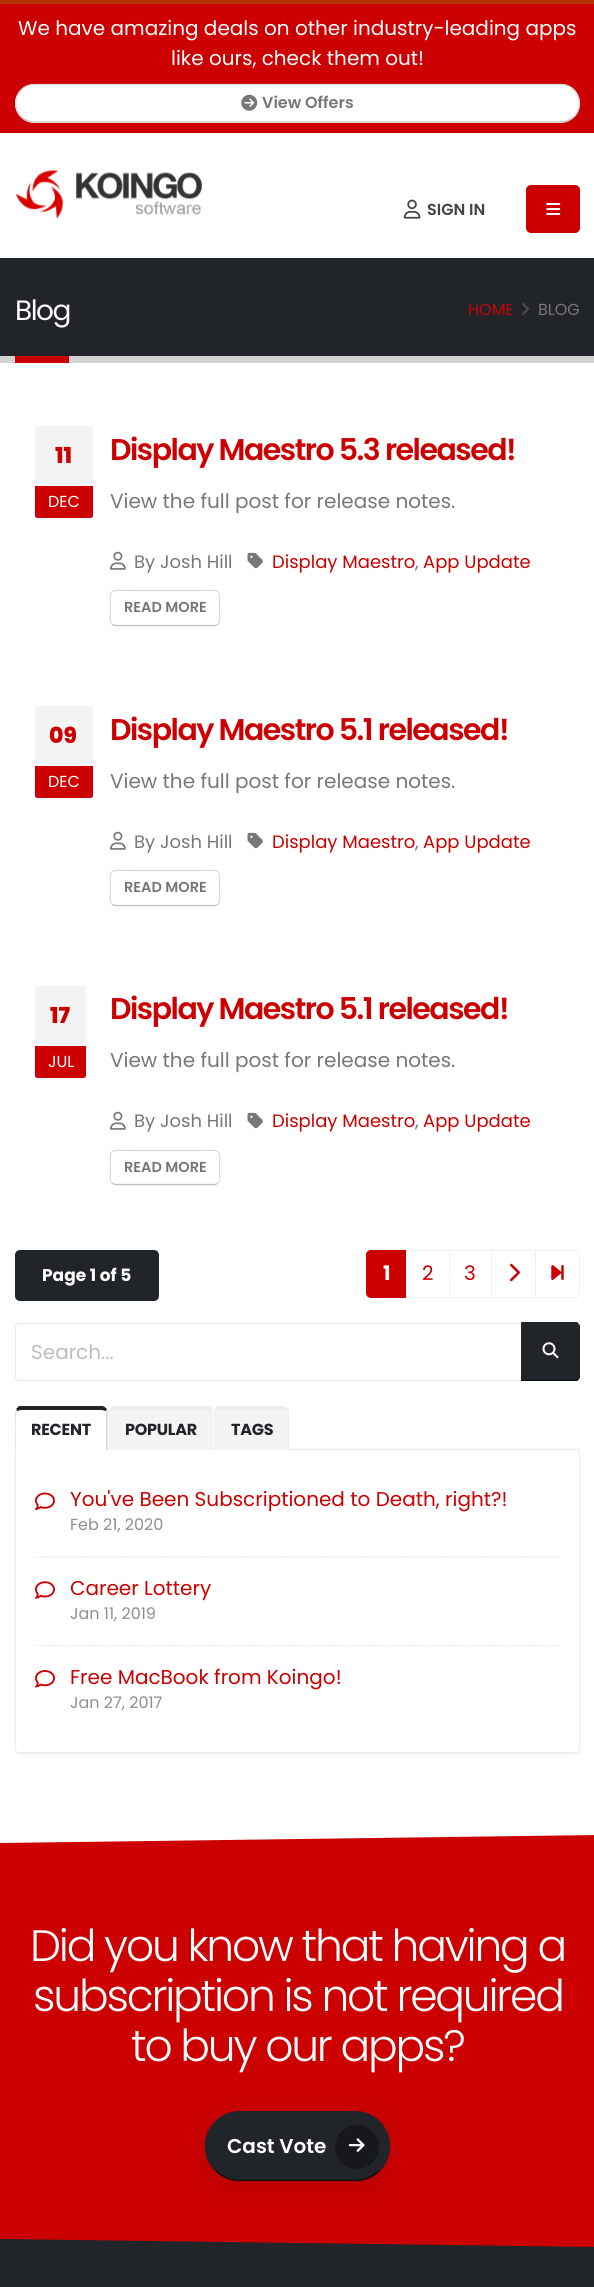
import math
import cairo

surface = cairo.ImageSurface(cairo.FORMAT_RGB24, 594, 2287)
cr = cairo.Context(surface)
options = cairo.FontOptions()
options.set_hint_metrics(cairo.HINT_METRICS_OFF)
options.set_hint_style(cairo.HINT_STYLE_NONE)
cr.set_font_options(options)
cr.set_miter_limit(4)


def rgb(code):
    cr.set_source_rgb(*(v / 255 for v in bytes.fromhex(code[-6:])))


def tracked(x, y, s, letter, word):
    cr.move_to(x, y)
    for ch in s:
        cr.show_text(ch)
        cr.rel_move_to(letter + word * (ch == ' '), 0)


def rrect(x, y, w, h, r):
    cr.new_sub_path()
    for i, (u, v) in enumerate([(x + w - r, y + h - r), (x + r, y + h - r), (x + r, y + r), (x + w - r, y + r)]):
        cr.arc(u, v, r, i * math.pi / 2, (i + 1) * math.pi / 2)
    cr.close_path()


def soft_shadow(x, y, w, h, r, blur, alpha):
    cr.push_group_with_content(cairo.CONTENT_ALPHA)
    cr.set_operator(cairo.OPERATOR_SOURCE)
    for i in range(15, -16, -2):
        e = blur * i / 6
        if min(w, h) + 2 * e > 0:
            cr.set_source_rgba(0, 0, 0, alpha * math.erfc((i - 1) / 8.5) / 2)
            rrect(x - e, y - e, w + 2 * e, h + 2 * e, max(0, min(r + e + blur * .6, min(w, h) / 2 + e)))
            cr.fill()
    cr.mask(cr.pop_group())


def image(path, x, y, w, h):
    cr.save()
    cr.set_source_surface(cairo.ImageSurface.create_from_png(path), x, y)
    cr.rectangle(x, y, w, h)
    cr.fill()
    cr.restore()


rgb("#ffffff")
cr.paint()
rgb("#b33204")
cr.rectangle(0, 0, 594, 4)
cr.fill()
rgb("#cc0000")
cr.rectangle(0, 4, 594, 129)
cr.fill()
rgb("#ffffff")
rrect(15, 84, 565, 39, 19.5)
cr.fill()
cr.new_path()
cr.move_to(574, 116.5)
cr.curve_to(570.5, 120, 565.5, 122, 560.5, 122)
cr.line_to(34.5, 122)
cr.curve_to(29.5, 122, 24.5, 120, 21, 116.5)
rgb("#bfbfbf")
cr.set_line_width(1.2)
cr.stroke()
cr.new_path()
cr.move_to(21, 116.5)
cr.curve_to(12, 107, 15, 91, 27, 86)
cr.curve_to(29.5, 85, 32, 84.5, 34.5, 84.5)
cr.line_to(560.5, 84.5)
cr.curve_to(563.5, 84.5, 566.5, 85, 569.5, 86.5)
cr.curve_to(580.5, 92.5, 582.5, 107.5, 574, 116.5)
rgb("#d9d9d9")
cr.stroke()
image("img/1.png", 241, 94, 17, 17)
image("img/2.png", 15, 170, 188, 49)
image("img/3.png", 403, 199, 18, 20)
rgb("#cc0000")
rrect(526, 185, 54, 48, 5)
cr.fill()
image("img/4.png", 546, 203, 15, 12)
rgb("#212529")
cr.rectangle(0, 258, 594, 98)
cr.fill()
image("img/5.png", 522, 303, 7, 12)
rgb("#d3d3d4")
cr.rectangle(0, 356, 594, 7)
cr.fill()
rgb("#cc0000")
cr.rectangle(15, 356, 54, 7)
cr.fill()
rgb("#f4f4f4")
cr.new_path()
cr.move_to(37.5, 426)
cr.line_to(90.5, 426)
cr.curve_to(92, 426, 93, 427, 93, 428.5)
cr.line_to(93, 486)
cr.line_to(35, 486)
cr.line_to(35, 428.5)
cr.curve_to(35, 427, 36, 426, 37.5, 426)
cr.close_path()
cr.fill()
rgb("#cc0000")
cr.new_path()
cr.move_to(35, 486)
cr.line_to(93, 486)
cr.line_to(93, 515.5)
cr.curve_to(93, 517, 92, 518, 90.5, 518)
cr.line_to(37.5, 518)
cr.curve_to(36, 518, 35, 517, 35, 515.5)
cr.close_path()
cr.fill()
image("img/6.png", 110, 551, 16, 19)
image("img/7.png", 247, 552, 16, 17)
cr.new_path()
cr.move_to(218, 624.5)
cr.line_to(215.5, 625.5)
cr.line_to(114.5, 625.5)
cr.line_to(112, 624.5)
rgb("#bfbfbf")
cr.stroke()
cr.new_path()
cr.move_to(112, 624.5)
cr.curve_to(109, 621.5, 110.5, 615.5, 110.5, 612.5)
cr.curve_to(110.5, 587.5, 106, 590.5, 131.5, 590.5)
cr.line_to(198.5, 590.5)
cr.curve_to(221.5, 590.5, 219.5, 587, 219.5, 608)
cr.curve_to(219.5, 611.5, 220.5, 621.5, 218, 624.5)
rgb("#d9d9d9")
cr.stroke()
rgb("#f4f4f4")
cr.new_path()
cr.move_to(37.5, 706)
cr.line_to(90.5, 706)
cr.curve_to(92, 706, 93, 707, 93, 708.5)
cr.line_to(93, 766)
cr.line_to(35, 766)
cr.line_to(35, 708.5)
cr.curve_to(35, 707, 36, 706, 37.5, 706)
cr.close_path()
cr.fill()
rgb("#cc0000")
cr.new_path()
cr.move_to(35, 766)
cr.line_to(93, 766)
cr.line_to(93, 795.5)
cr.curve_to(93, 797, 92, 798, 90.5, 798)
cr.line_to(37.5, 798)
cr.curve_to(36, 798, 35, 797, 35, 795.5)
cr.close_path()
cr.fill()
image("img/6.png", 110, 831, 16, 19)
image("img/7.png", 247, 832, 16, 17)
cr.new_path()
cr.move_to(218, 904.5)
cr.line_to(215.5, 905.5)
cr.line_to(114.5, 905.5)
cr.line_to(112, 904.5)
rgb("#bfbfbf")
cr.stroke()
cr.new_path()
cr.move_to(112, 904.5)
cr.curve_to(109, 901.5, 110.5, 895.5, 110.5, 892.5)
cr.curve_to(110.5, 867.5, 106, 870.5, 131.5, 870.5)
cr.line_to(198.5, 870.5)
cr.curve_to(221.5, 870.5, 219.5, 867, 219.5, 888)
cr.curve_to(219.5, 891.5, 220.5, 901.5, 218, 904.5)
rgb("#d9d9d9")
cr.stroke()
rgb("#f4f4f4")
cr.new_path()
cr.move_to(37.5, 986)
cr.line_to(83.5, 986)
cr.curve_to(85, 986, 86, 987, 86, 988.5)
cr.line_to(86, 1046)
cr.line_to(35, 1046)
cr.line_to(35, 988.5)
cr.curve_to(35, 987, 36, 986, 37.5, 986)
cr.close_path()
cr.fill()
rgb("#cc0000")
cr.new_path()
cr.move_to(35, 1046)
cr.line_to(86, 1046)
cr.line_to(86, 1075.5)
cr.curve_to(86, 1077, 85, 1078, 83.5, 1078)
cr.line_to(37.5, 1078)
cr.curve_to(36, 1078, 35, 1077, 35, 1075.5)
cr.close_path()
cr.fill()
image("img/6.png", 110, 1111, 16, 19)
image("img/7.png", 247, 1112, 16, 17)
cr.new_path()
cr.move_to(218, 1183)
cr.line_to(215.5, 1184.5)
cr.line_to(114.5, 1184.5)
cr.line_to(112, 1183)
rgb("#bfbfbf")
cr.stroke()
cr.new_path()
cr.move_to(112, 1183)
cr.curve_to(109, 1180.5, 110.5, 1175, 110.5, 1171.5)
cr.curve_to(110.5, 1147.5, 106.5, 1150.5, 131.5, 1150.5)
cr.line_to(198.5, 1150.5)
cr.curve_to(223.5, 1150.5, 219.5, 1147.5, 219.5, 1171.5)
cr.curve_to(219.5, 1175, 221, 1180.5, 218, 1183)
rgb("#d9d9d9")
cr.stroke()
rgb("#212529")
rrect(15, 1250, 144, 51, 5)
cr.fill()
cr.rectangle(405.5, 1250.5, 44, 47)
rgb("#f0f0f0")
cr.set_line_width(1)
cr.stroke()
rgb("#cc0000")
cr.new_path()
cr.move_to(371, 1250.5)
cr.line_to(405.5, 1250.5)
cr.line_to(405.5, 1297.5)
cr.line_to(371, 1297.5)
cr.curve_to(368.5, 1297.5, 366.5, 1295.5, 366.5, 1293)
cr.line_to(366.5, 1255)
cr.curve_to(366.5, 1252.5, 368.5, 1250.5, 371, 1250.5)
cr.close_path()
cr.fill_preserve()
cr.stroke()
cr.rectangle(449.5, 1250.5, 43, 47)
rgb("#f0f0f0")
cr.stroke()
rgb("#ffffff")
cr.rectangle(492, 1251, 1, 46)
cr.fill()
cr.rectangle(491.5, 1250.5, 44, 47)
rgb("#f0f0f0")
cr.stroke()
image("img/8.png", 510, 1263, 10, 19)
rgb("#ffffff")
cr.new_path()
cr.move_to(535.5, 1250.5)
cr.line_to(575, 1250.5)
cr.curve_to(577.5, 1250.5, 579.5, 1252.5, 579.5, 1255)
cr.line_to(579.5, 1293)
cr.curve_to(579.5, 1295.5, 577.5, 1297.5, 575, 1297.5)
cr.line_to(535.5, 1297.5)
cr.close_path()
cr.fill_preserve()
rgb("#f0f0f0")
cr.stroke()
image("img/9.png", 551, 1265, 13, 15)
cr.new_path()
cr.move_to(20, 1323.5)
cr.line_to(522.5, 1323.5)
cr.line_to(522.5, 1380.5)
cr.line_to(20, 1380.5)
cr.curve_to(17.5, 1380.5, 15.5, 1378.5, 15.5, 1376)
cr.line_to(15.5, 1328)
cr.curve_to(15.5, 1325.5, 17.5, 1323.5, 20, 1323.5)
cr.close_path()
rgb("#e8e8e8")
cr.stroke()
rgb("#212529")
cr.new_path()
cr.move_to(521, 1323)
cr.line_to(575, 1323)
cr.curve_to(578, 1323, 580, 1325, 580, 1328)
cr.line_to(580, 1376)
cr.curve_to(580, 1379, 578, 1381, 575, 1381)
cr.line_to(521, 1381)
cr.close_path()
cr.fill()
cr.new_path()
cr.move_to(521, 1322)
cr.line_to(577, 1322)
cr.line_to(579, 1324)
cr.line_to(578, 1325)
cr.line_to(575, 1324)
cr.line_to(523, 1324)
cr.close_path()
cr.fill()
cr.new_path()
cr.move_to(580, 1376)
cr.line_to(580, 1328)
cr.curve_to(580, 1326, 580, 1325, 579, 1324)
cr.line_to(578, 1325)
cr.curve_to(578, 1325, 579, 1326, 579, 1328)
cr.line_to(579, 1376)
cr.curve_to(579, 1377, 578, 1378, 578, 1379)
cr.line_to(578, 1380)
cr.curve_to(579, 1379, 580, 1378, 580, 1376)
cr.close_path()
cr.fill()
rgb("#0a0c0d")
cr.new_path()
cr.move_to(578, 1380)
cr.curve_to(578, 1381, 576, 1381, 575, 1381)
cr.line_to(522, 1381)
cr.line_to(522, 1380)
cr.line_to(575, 1380)
cr.line_to(578, 1379)
cr.close_path()
cr.fill()
rgb("#212529")
cr.new_path()
cr.move_to(522, 1324)
cr.line_to(522, 1380)
cr.line_to(521, 1381)
cr.line_to(521, 1322)
cr.line_to(523, 1324)
cr.close_path()
cr.fill()
image("img/10.png", 542, 1342, 17, 17)
rgb("#eeeeee")
cr.rectangle(108, 1449, 472, 1)
cr.fill()
rgb("#000000")
soft_shadow(15, 1451, 565, 304, 5, 3, 0.04)
rgb("#ffffff")
cr.new_path()
cr.move_to(21, 1406)
cr.line_to(102, 1406)
cr.curve_to(105.5, 1406, 108, 1408.5, 108, 1412)
cr.line_to(108, 1450)
cr.line_to(15, 1450)
cr.line_to(15, 1412)
cr.curve_to(15, 1408.5, 17.5, 1406, 21, 1406)
cr.close_path()
cr.fill()
rgb("#212529")
cr.new_path()
cr.move_to(21, 1410)
cr.line_to(17, 1411)
cr.line_to(16, 1409)
cr.curve_to(17, 1408, 18, 1407, 19, 1406)
cr.line_to(103, 1406)
cr.curve_to(105, 1407, 106, 1408, 107, 1409)
cr.line_to(106, 1411)
cr.curve_to(105, 1411, 103, 1410, 101, 1410)
cr.close_path()
cr.fill()
rgb("#dee2e6")
cr.new_path()
cr.move_to(106, 1411)
cr.line_to(107, 1409)
cr.line_to(108, 1410)
cr.line_to(108, 1450)
cr.line_to(106, 1450)
cr.close_path()
cr.fill()
cr.new_path()
cr.move_to(15, 1450)
cr.line_to(16, 1450)
cr.curve_to(16, 1446, 15, 1412, 17, 1411)
cr.line_to(16, 1409)
cr.line_to(15, 1412)
cr.close_path()
cr.fill()
rgb("#f4f4f4")
cr.new_path()
cr.move_to(115, 1406)
cr.line_to(207, 1406)
cr.curve_to(210.5, 1406, 213, 1408.5, 213, 1412)
cr.line_to(213, 1450)
cr.line_to(109, 1450)
cr.line_to(109, 1412)
cr.curve_to(109, 1408.5, 111.5, 1406, 115, 1406)
cr.close_path()
cr.fill()
rgb("#eeeeee")
cr.set_fill_rule(cairo.FILL_RULE_EVEN_ODD)
cr.new_path()
cr.move_to(115, 1406)
cr.line_to(206, 1406)
cr.curve_to(210, 1406, 212, 1409, 212, 1412)
cr.line_to(212, 1450)
cr.line_to(109, 1450)
cr.line_to(109, 1412)
cr.curve_to(109, 1409, 112, 1406, 115, 1406)
cr.close_path()
cr.move_to(115, 1410)
cr.line_to(206, 1410)
cr.curve_to(209, 1410, 211, 1411, 211, 1412)
cr.line_to(211, 1450)
cr.line_to(110, 1450)
cr.line_to(110, 1412)
cr.curve_to(110, 1411, 112, 1410, 115, 1410)
cr.close_path()
cr.fill()
rgb("#f4f4f4")
cr.new_path()
cr.move_to(220, 1406)
cr.line_to(283, 1406)
cr.curve_to(286.5, 1406, 289, 1408.5, 289, 1412)
cr.line_to(289, 1450)
cr.line_to(214, 1450)
cr.line_to(214, 1412)
cr.curve_to(214, 1408.5, 216.5, 1406, 220, 1406)
cr.close_path()
cr.fill()
rgb("#eeeeee")
cr.new_path()
cr.move_to(220, 1406)
cr.line_to(282, 1406)
cr.curve_to(286, 1406, 289, 1409, 289, 1412)
cr.line_to(289, 1450)
cr.line_to(214, 1450)
cr.line_to(214, 1412)
cr.curve_to(214, 1409, 217, 1406, 220, 1406)
cr.close_path()
cr.move_to(220, 1410)
cr.line_to(282, 1410)
cr.curve_to(285, 1410, 288, 1411, 288, 1412)
cr.line_to(288, 1450)
cr.line_to(215, 1450)
cr.line_to(215, 1412)
cr.curve_to(215, 1411, 217, 1410, 220, 1410)
cr.close_path()
cr.fill()
rgb("#ffffff")
cr.new_path()
cr.move_to(15, 1450)
cr.line_to(580, 1450)
cr.line_to(580, 1749)
cr.curve_to(580, 1752, 578, 1754, 575, 1754)
cr.line_to(20, 1754)
cr.curve_to(17, 1754, 15, 1752, 15, 1749)
cr.close_path()
cr.fill()
rgb("#eeeeee")
cr.new_path()
cr.move_to(15, 1450)
cr.line_to(580, 1450)
cr.line_to(580, 1749)
cr.curve_to(580, 1752, 578, 1754, 575, 1754)
cr.line_to(20, 1754)
cr.curve_to(17, 1754, 15, 1752, 15, 1749)
cr.close_path()
cr.move_to(16, 1450)
cr.line_to(579, 1450)
cr.line_to(579, 1749)
cr.curve_to(579, 1751, 577, 1752, 575, 1752)
cr.line_to(20, 1752)
cr.curve_to(18, 1752, 16, 1751, 16, 1749)
cr.close_path()
cr.fill()
cr.new_path()
cr.move_to(35, 1557)
cr.line_to(560, 1557)
rgb("#e2e2e2")
cr.set_line_width(1.2)
cr.set_dash([1.25, 1.25])
cr.stroke()
image("img/11.png", 35, 1492, 20, 18)
cr.new_path()
cr.move_to(35, 1645.5)
cr.line_to(560, 1645.5)
cr.stroke()
image("img/12.png", 35, 1581, 20, 18)
image("img/13.png", 35, 1670, 20, 18)
rgb("#cc0000")
cr.rectangle(0, 1835, 594, 412)
cr.fill()
cr.save()
cr.set_fill_rule(cairo.FILL_RULE_WINDING)
cr.rectangle(0, 1779, 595, 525)
cr.clip()
rgb("#ffffff")
cr.new_path()
cr.move_to(0, 1723)
cr.line_to(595, 1715)
cr.line_to(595, 1835)
cr.line_to(0, 1843)
cr.close_path()
cr.fill()
cr.restore()
rgb("#000000")
soft_shadow(205, 2118, 185, 70, 35, 12.5, 0.1)
rgb("#212529")
rrect(205, 2111, 185, 70, 35)
cr.fill()
cr.new_path()
cr.move_to(379.5, 2170.5)
cr.curve_to(373, 2177, 364, 2180.5, 355, 2180.5)
cr.line_to(240, 2180.5)
cr.curve_to(231, 2180.5, 222, 2177, 215.5, 2170.5)
rgb("#0a0c0d")
cr.set_dash([])
cr.stroke()
cr.new_path()
cr.move_to(215.5, 2170.5)
cr.curve_to(209, 2164, 205.5, 2155.5, 205.5, 2146)
cr.curve_to(205.5, 2137, 209, 2128.5, 215.5, 2122)
cr.curve_to(222, 2115.5, 231, 2112, 240, 2112)
cr.line_to(355, 2112)
cr.curve_to(364, 2112, 373, 2115.5, 379.5, 2122)
cr.curve_to(386, 2128.5, 389.5, 2137, 389.5, 2146)
cr.curve_to(389.5, 2155.5, 386, 2164, 379.5, 2170.5)
rgb("#212529")
cr.stroke()
rgb("#16181b")
cr.arc(357, 2147, 22, 0, 2 * math.pi)
cr.fill()
image("img/14.png", 348, 2138, 17, 14)
rgb("#212529")
cr.set_fill_rule(cairo.FILL_RULE_WINDING)
cr.new_path()
cr.move_to(0, 2239)
cr.line_to(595, 2247)
cr.line_to(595, 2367)
cr.line_to(0, 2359)
cr.close_path()
cr.fill()
cr.select_font_face("Poppins")
cr.set_font_size(20)
rgb("#ffffff")
cr.move_to(18, 35)
cr.show_text("We have amazing deals on other industry-leading apps")
cr.move_to(171, 65)
cr.show_text("like ours, check them out!")
cr.select_font_face("Poppins SemiBold")
cr.set_font_size(16)
rgb("#777777")
cr.move_to(262, 108)
cr.show_text("View Offers")
rgb("#444444")
cr.move_to(427, 215)
cr.show_text("SIGN IN")
cr.select_font_face("Poppins")
cr.set_font_size(28)
rgb("#ffffff")
tracked(15, 320, "Blog", -1.5, 0)
cr.set_font_size(16)
rgb("#cc0000")
cr.move_to(468, 315)
cr.show_text("HOME")
rgb("#777777")
cr.move_to(538, 315)
cr.show_text("BLOG")
cr.select_font_face("Poppins ExtraBold")
cr.set_font_size(22)
rgb("#cc0000")
cr.move_to(55, 463)
cr.show_text("11")
cr.select_font_face("Poppins")
cr.set_font_size(16)
rgb("#ffffff")
cr.move_to(48, 507)
cr.show_text("DEC")
cr.select_font_face("Poppins SemiBold")
cr.set_font_size(30)
rgb("#cc0000")
tracked(110, 460, "Display Maestro 5.3 released!", -1.5, 0)
cr.select_font_face("Poppins")
cr.set_font_size(20)
rgb("#777777")
cr.move_to(110, 508)
cr.show_text("View the full post for release notes.")
cr.set_font_size(18)
cr.move_to(134, 568)
cr.show_text("By Josh Hill")
rgb("#cc0000")
cr.move_to(272, 568)
cr.show_text("Display Maestro")
rgb("#777777")
cr.move_to(415, 568)
cr.show_text(",")
rgb("#cc0000")
cr.move_to(423, 568)
cr.show_text("App Update")
cr.select_font_face("Poppins SemiBold")
cr.set_font_size(14.5)
rgb("#777777")
cr.move_to(124, 612)
cr.show_text("READ MORE")
cr.select_font_face("Poppins ExtraBold")
cr.set_font_size(22)
rgb("#cc0000")
cr.move_to(49, 743)
cr.show_text("09")
cr.select_font_face("Poppins")
cr.set_font_size(16)
rgb("#ffffff")
cr.move_to(48, 787)
cr.show_text("DEC")
cr.select_font_face("Poppins SemiBold")
cr.set_font_size(30)
rgb("#cc0000")
tracked(110, 740, "Display Maestro 5.1 released!", -1.5, 0)
cr.select_font_face("Poppins")
cr.set_font_size(20)
rgb("#777777")
cr.move_to(110, 788)
cr.show_text("View the full post for release notes.")
cr.set_font_size(18)
cr.move_to(134, 848)
cr.show_text("By Josh Hill")
rgb("#cc0000")
cr.move_to(272, 848)
cr.show_text("Display Maestro")
rgb("#777777")
cr.move_to(415, 848)
cr.show_text(",")
rgb("#cc0000")
cr.move_to(423, 848)
cr.show_text("App Update")
cr.select_font_face("Poppins SemiBold")
cr.set_font_size(14.5)
rgb("#777777")
cr.move_to(124, 892)
cr.show_text("READ MORE")
cr.select_font_face("Poppins ExtraBold")
cr.set_font_size(22)
rgb("#cc0000")
cr.move_to(50, 1023)
cr.show_text("17")
cr.select_font_face("Poppins")
cr.set_font_size(16)
rgb("#ffffff")
cr.move_to(48, 1067)
cr.show_text("JUL")
cr.select_font_face("Poppins SemiBold")
cr.set_font_size(30)
rgb("#cc0000")
tracked(110, 1019, "Display Maestro 5.1 released!", -1.5, 0)
cr.select_font_face("Poppins")
cr.set_font_size(20)
rgb("#777777")
cr.move_to(110, 1067)
cr.show_text("View the full post for release notes.")
cr.set_font_size(18)
cr.move_to(134, 1127)
cr.show_text("By Josh Hill")
rgb("#cc0000")
cr.move_to(272, 1127)
cr.show_text("Display Maestro")
rgb("#777777")
cr.move_to(415, 1127)
cr.show_text(",")
rgb("#cc0000")
cr.move_to(423, 1127)
cr.show_text("App Update")
cr.select_font_face("Poppins SemiBold")
cr.set_font_size(14.5)
rgb("#777777")
cr.move_to(124, 1172)
cr.show_text("READ MORE")
cr.select_font_face("Poppins", cairo.FONT_SLANT_NORMAL, cairo.FONT_WEIGHT_BOLD)
cr.set_font_size(17)
rgb("#ffffff")
cr.move_to(42, 1281)
cr.show_text("Page 1 of 5")
cr.set_font_size(20)
cr.move_to(383, 1280)
cr.show_text("1")
cr.select_font_face("Poppins")
rgb("#cc0000")
cr.move_to(422, 1280)
cr.show_text("2")
cr.move_to(464, 1280)
cr.show_text("3")
rgb("#bdbdbd")
cr.move_to(31, 1359)
cr.show_text("Search...")
cr.select_font_face("Poppins", cairo.FONT_SLANT_NORMAL, cairo.FONT_WEIGHT_BOLD)
cr.set_font_size(16)
rgb("#212529")
for x, y, s in [
    (31, 1435, "RECENT"),
    (125, 1435, "POPULAR"),
    (231, 1435, "TAGS"),
]:
    tracked(x, y, s, -0.25, 0)
cr.select_font_face("Poppins")
cr.set_font_size(20)
rgb("#cc0000")
cr.move_to(70, 1506)
cr.show_text("You've Been Subscriptioned to Death, right?!")
cr.set_font_size(16)
rgb("#8e8e8e")
cr.move_to(70, 1530)
cr.show_text("Feb 21, 2020")
cr.set_font_size(20)
rgb("#cc0000")
cr.move_to(70, 1595)
cr.show_text("Career Lottery")
cr.set_font_size(16)
rgb("#8e8e8e")
cr.move_to(70, 1619)
cr.show_text("Jan 11, 2019")
cr.set_font_size(20)
rgb("#cc0000")
cr.move_to(70, 1684)
cr.show_text("Free MacBook from Koingo!")
cr.set_font_size(16)
rgb("#8e8e8e")
cr.move_to(70, 1708)
cr.show_text("Jan 27, 2017")
cr.select_font_face("Poppins Light")
cr.set_font_size(44)
rgb("#ffffff")
for x, y, s in [
    (30, 1961, "Did you know that having a"),
    (33, 2011, "subscription is not required"),
    (131, 2061, "to buy our apps?"),
]:
    tracked(x, y, s, -2.2, 0)
cr.select_font_face("Poppins SemiBold")
cr.set_font_size(20)
cr.move_to(227, 2153)
cr.show_text("Cast Vote")
surface.write_to_png("page.png")
